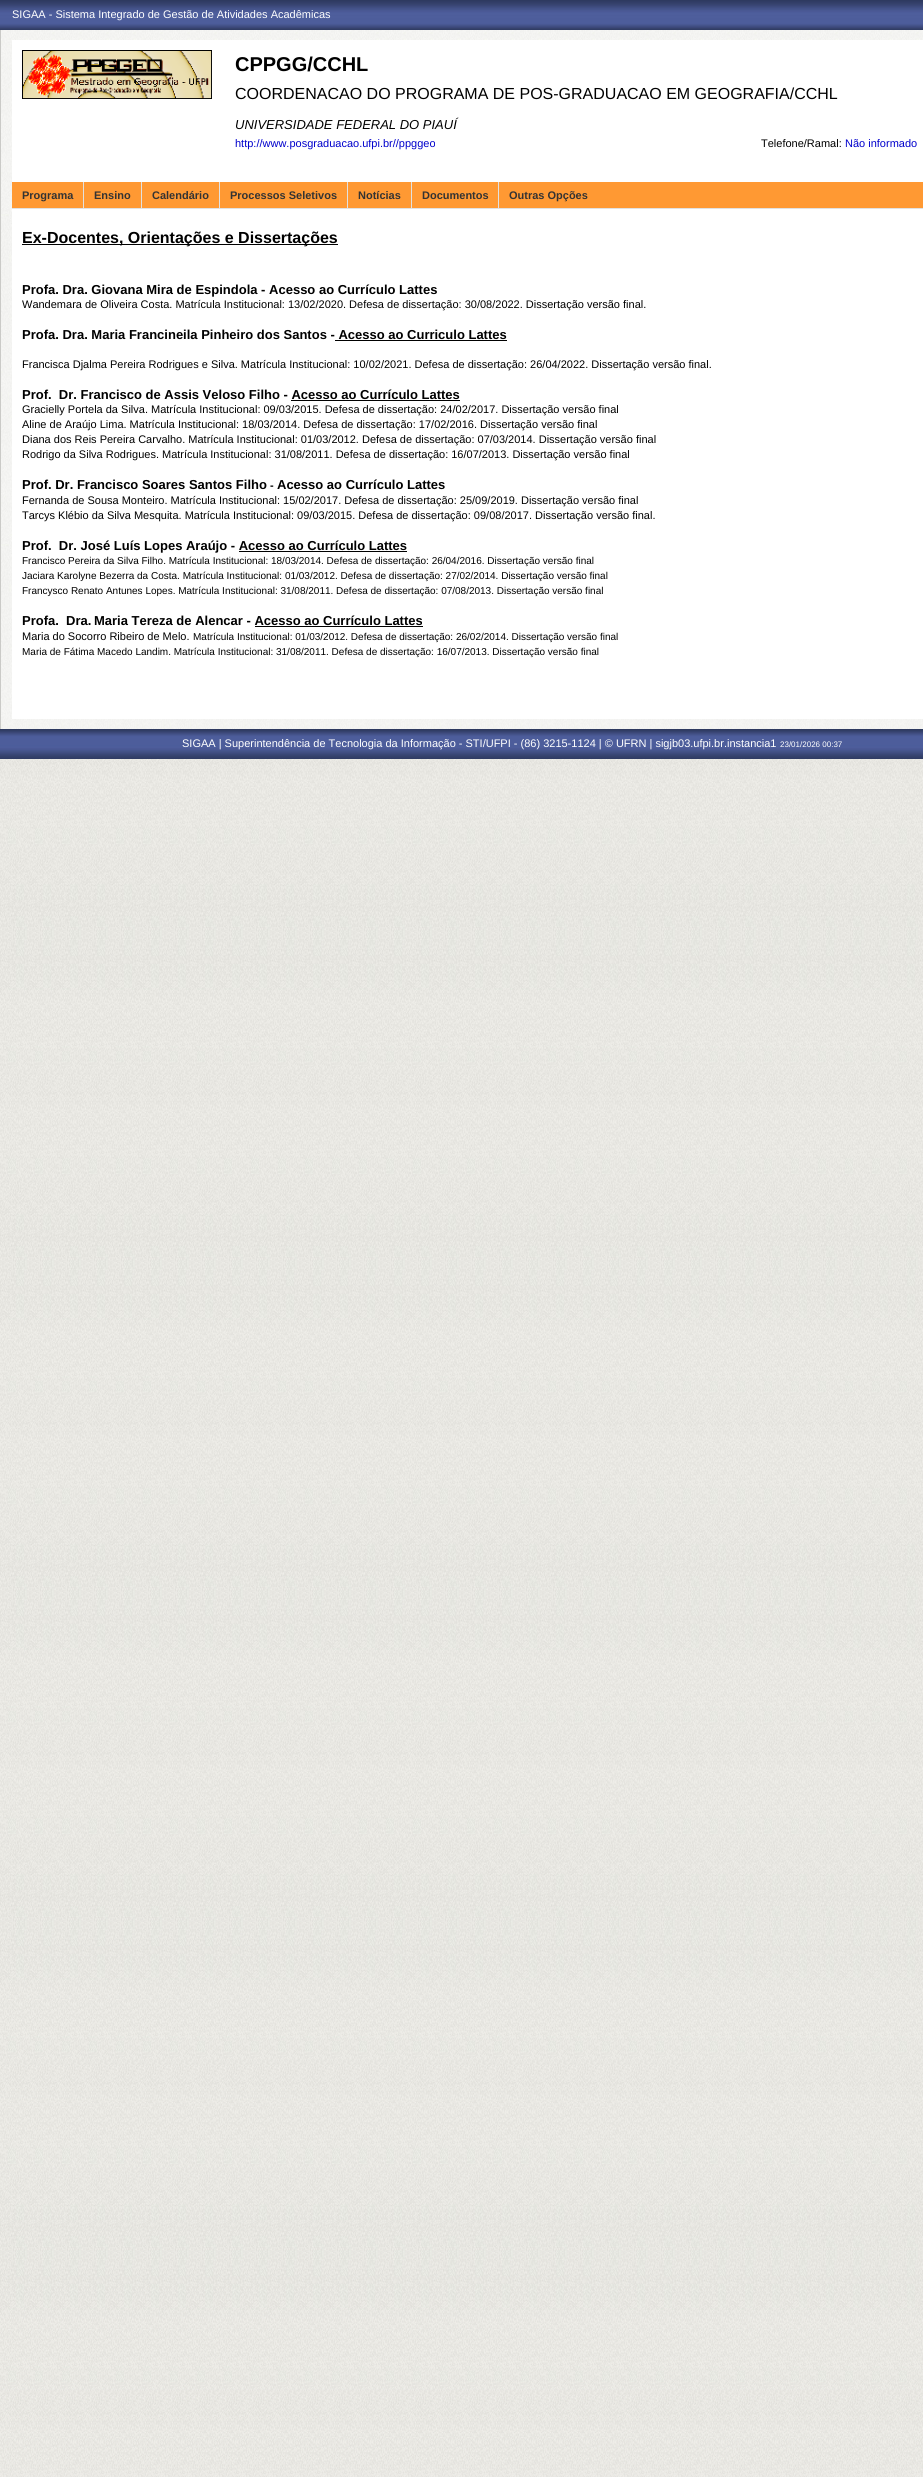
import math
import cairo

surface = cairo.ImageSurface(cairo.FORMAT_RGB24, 923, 2477)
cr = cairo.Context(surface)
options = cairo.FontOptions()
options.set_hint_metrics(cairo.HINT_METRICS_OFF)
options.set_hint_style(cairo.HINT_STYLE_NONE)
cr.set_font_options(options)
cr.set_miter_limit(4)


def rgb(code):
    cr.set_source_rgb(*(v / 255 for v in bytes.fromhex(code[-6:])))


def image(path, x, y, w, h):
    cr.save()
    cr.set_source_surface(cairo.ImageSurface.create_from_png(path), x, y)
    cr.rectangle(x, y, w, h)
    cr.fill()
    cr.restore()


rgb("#ffffff")
cr.paint()
image("img/1.png", 0, 759, 923, 1718)
image("img/2.png", 0, 0, 923, 30)
image("img/3.png", 0, 729, 923, 30)
image("img/4.png", 1, 30, 922, 699)
rgb("#cacac7")
cr.rectangle(0, 30, 1, 699)
cr.fill()
rgb("#ffffff")
cr.rectangle(12, 40, 911, 679)
cr.fill()
image("img/5.png", 22, 50, 190, 49)
for x, y, w, h, color in [
    (12, 182, 911, 26, "#ff9933"),
    (12, 208, 911, 1, "#e1e1e1"),
    (83, 182, 1, 27, "#e1e1e1"),
    (141, 182, 1, 27, "#e1e1e1"),
    (219, 182, 1, 27, "#e1e1e1"),
    (347, 182, 1, 27, "#e1e1e1"),
    (411, 182, 1, 27, "#e1e1e1"),
    (498, 182, 1, 27, "#e1e1e1"),
    (22, 244, 316, 1, "#000000"),
    (335, 340, 172, 1, "#000000"),
    (291, 400, 169, 1, "#000000"),
    (239, 551, 168, 1, "#000000"),
    (255, 626, 168, 1, "#000000"),
]:
    rgb(color)
    cr.rectangle(x, y, w, h)
    cr.fill()
cr.select_font_face("Liberation Sans")
cr.set_font_size(11)
rgb("#ffffff")
cr.move_to(12, 18)
cr.show_text("SIGAA - Sistema Integrado de Gestão de Atividades Acadêmicas")
cr.select_font_face("Liberation Sans", cairo.FONT_SLANT_NORMAL, cairo.FONT_WEIGHT_BOLD)
cr.set_font_size(20)
rgb("#000000")
cr.move_to(235, 71)
cr.show_text("CPPGG/CCHL")
cr.select_font_face("Liberation Sans")
cr.set_font_size(16)
cr.move_to(235, 99)
cr.show_text("COORDENACAO DO PROGRAMA DE POS-GRADUACAO EM GEOGRAFIA/CCHL")
cr.select_font_face("Liberation Sans", cairo.FONT_SLANT_ITALIC)
cr.set_font_size(13)
cr.move_to(235, 129)
cr.show_text("UNIVERSIDADE FEDERAL DO PIAUÍ")
cr.select_font_face("Liberation Sans")
cr.set_font_size(11)
rgb("#0000cc")
cr.move_to(235, 147)
cr.show_text("http://www.posgraduacao.ufpi.br//ppggeo")
rgb("#000000")
cr.move_to(761, 147)
cr.show_text("Telefone/Ramal:")
rgb("#0000cc")
cr.move_to(845, 147)
cr.show_text("Não informado")
cr.select_font_face("Liberation Sans", cairo.FONT_SLANT_NORMAL, cairo.FONT_WEIGHT_BOLD)
rgb("#333333")
for x, y, s in [
    (22, 199, "Programa"),
    (94, 199, "Ensino"),
    (152, 199, "Calendário"),
    (230, 199, "Processos Seletivos"),
    (358, 199, "Notícias"),
    (422, 199, "Documentos"),
    (509, 199, "Outras Opções"),
]:
    cr.move_to(x, y)
    cr.show_text(s)
cr.set_font_size(16)
rgb("#000000")
cr.move_to(22, 243)
cr.show_text("Ex-Docentes, Orientações e Dissertações")
cr.set_font_size(13)
cr.move_to(22, 294)
cr.show_text("Profa. Dra. Giovana Mira de Espindola - Acesso ao Currículo Lattes")
cr.select_font_face("Liberation Sans")
cr.set_font_size(11)
cr.move_to(22, 308)
cr.show_text("Wandemara de Oliveira Costa. Matrícula Institucional: 13/02/2020. Defesa de dissertação: 30/08/2022. Dissertação versão final.")
cr.select_font_face("Liberation Sans", cairo.FONT_SLANT_NORMAL, cairo.FONT_WEIGHT_BOLD)
cr.set_font_size(13)
cr.move_to(22, 339)
cr.show_text("Profa. Dra. Maria Francineila Pinheiro dos Santos - Acesso ao Curriculo Lattes")
cr.select_font_face("Liberation Sans")
cr.set_font_size(11)
cr.move_to(22, 368)
cr.show_text("Francisca Djalma Pereira Rodrigues e Silva. Matrícula Institucional: 10/02/2021. Defesa de dissertação: 26/04/2022. Dissertação versão final.")
cr.select_font_face("Liberation Sans", cairo.FONT_SLANT_NORMAL, cairo.FONT_WEIGHT_BOLD)
cr.set_font_size(13)
cr.move_to(22, 399)
cr.show_text("Prof.  Dr. Francisco de Assis Veloso Filho - Acesso ao Currículo Lattes")
cr.select_font_face("Liberation Sans")
cr.set_font_size(11)
for x, y, s in [
    (22, 413, "Gracielly Portela da Silva. Matrícula Institucional: 09/03/2015. Defesa de dissertação: 24/02/2017. Dissertação versão final"),
    (22, 428, "Aline de Araújo Lima. Matrícula Institucional: 18/03/2014. Defesa de dissertação: 17/02/2016. Dissertação versão final"),
    (22, 443, "Diana dos Reis Pereira Carvalho. Matrícula Institucional: 01/03/2012. Defesa de dissertação: 07/03/2014. Dissertação versão final"),
    (22, 458, "Rodrigo da Silva Rodrigues. Matrícula Institucional: 31/08/2011. Defesa de dissertação: 16/07/2013. Dissertação versão final"),
]:
    cr.move_to(x, y)
    cr.show_text(s)
cr.select_font_face("Liberation Sans", cairo.FONT_SLANT_NORMAL, cairo.FONT_WEIGHT_BOLD)
cr.set_font_size(13)
cr.move_to(22, 489)
cr.show_text("Prof. Dr. Francisco Soares Santos Filho")
cr.set_font_size(11)
cr.move_to(270, 489)
cr.show_text("-")
cr.set_font_size(13)
cr.move_to(277, 489)
cr.show_text("Acesso ao Currículo Lattes")
cr.select_font_face("Liberation Sans")
cr.set_font_size(11)
cr.move_to(22, 504)
cr.show_text("Fernanda de Sousa Monteiro. Matrícula Institucional: 15/02/2017. Defesa de dissertação: 25/09/2019. Dissertação versão final")
cr.move_to(22, 519)
cr.show_text("Tarcys Klébio da Silva Mesquita. Matrícula Institucional: 09/03/2015. Defesa de dissertação: 09/08/2017. Dissertação versão final.")
cr.select_font_face("Liberation Sans", cairo.FONT_SLANT_NORMAL, cairo.FONT_WEIGHT_BOLD)
cr.set_font_size(13)
cr.move_to(22, 550)
cr.show_text("Prof.  Dr. José Luís Lopes Araújo - Acesso ao Currículo Lattes")
cr.select_font_face("Liberation Sans")
cr.set_font_size(10)
for x, y, s in [
    (22, 564, "Francisco Pereira da Silva Filho. Matrícula Institucional: 18/03/2014. Defesa de dissertação: 26/04/2016. Dissertação versão final"),
    (22, 579, "Jaciara Karolyne Bezerra da Costa. Matrícula Institucional: 01/03/2012. Defesa de dissertação: 27/02/2014. Dissertação versão final"),
    (22, 594, "Francysco Renato Antunes Lopes. Matrícula Institucional: 31/08/2011. Defesa de dissertação: 07/08/2013. Dissertação versão final"),
]:
    cr.move_to(x, y)
    cr.show_text(s)
cr.select_font_face("Liberation Sans", cairo.FONT_SLANT_NORMAL, cairo.FONT_WEIGHT_BOLD)
cr.set_font_size(13)
cr.move_to(22, 625)
cr.show_text("Profa.  Dra.")
cr.move_to(94, 625)
cr.show_text("Maria Tereza de Alencar - Acesso ao Currículo Lattes")
cr.select_font_face("Liberation Sans")
cr.set_font_size(11)
cr.move_to(22, 640)
cr.show_text("Maria do Socorro Ribeiro de Melo.")
cr.set_font_size(10)
cr.move_to(193, 640)
cr.show_text("Matrícula Institucional: 01/03/2012. Defesa de dissertação: 26/02/2014. Dissertação versão final")
cr.move_to(22, 655)
cr.show_text("Maria de Fátima Macedo Landim. Matrícula Institucional: 31/08/2011. Defesa de dissertação: 16/07/2013. Dissertação versão final")
cr.set_font_size(11)
rgb("#ffffff")
cr.move_to(182, 747)
cr.show_text("SIGAA | Superintendência de Tecnologia da Informação - STI/UFPI - (86) 3215-1124 | © UFRN | sigjb03.ufpi.br.instancia1")
cr.set_font_size(8)
cr.move_to(780, 747)
cr.show_text("23/01/2026 00:37")
surface.write_to_png("page.png")
